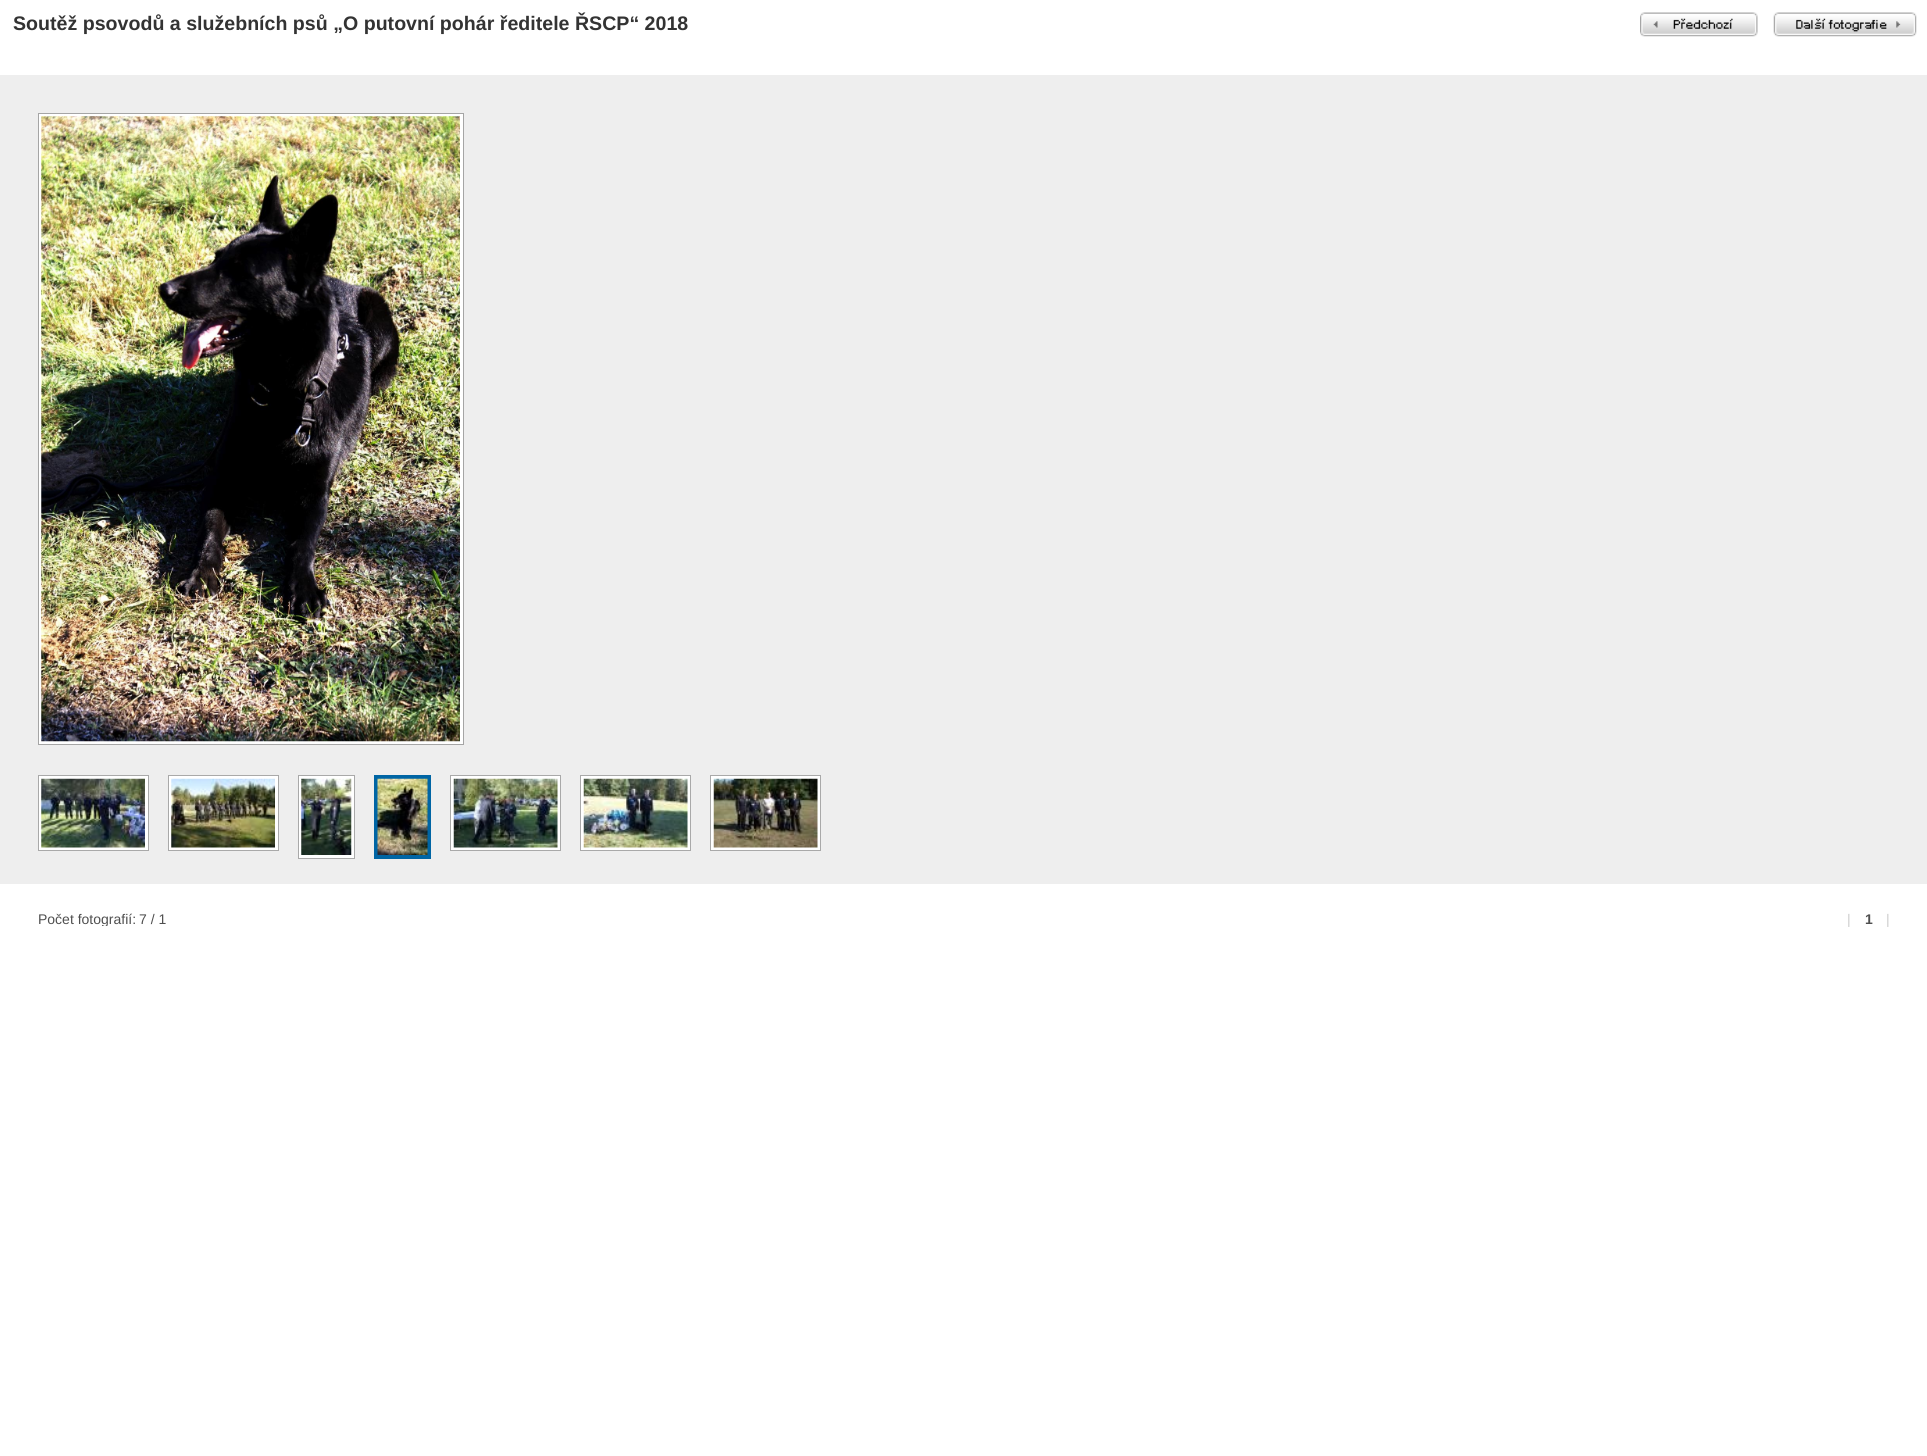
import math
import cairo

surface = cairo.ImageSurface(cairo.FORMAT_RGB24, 1927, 1456)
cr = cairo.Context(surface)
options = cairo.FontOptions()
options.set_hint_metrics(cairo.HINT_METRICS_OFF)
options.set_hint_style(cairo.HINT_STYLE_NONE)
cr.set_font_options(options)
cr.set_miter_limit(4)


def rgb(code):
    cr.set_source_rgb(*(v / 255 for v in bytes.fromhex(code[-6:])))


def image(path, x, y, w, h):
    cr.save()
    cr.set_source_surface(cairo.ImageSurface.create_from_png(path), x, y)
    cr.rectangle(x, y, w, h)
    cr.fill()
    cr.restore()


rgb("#ffffff")
cr.paint()
rgb("#eeeeee")
cr.rectangle(0, 75, 1927, 809)
cr.fill()
image("img/1.png", 1640, 12, 118, 25)
image("img/2.png", 1773, 12, 144, 25)
rgb("#ffffff")
cr.rectangle(38.5, 113.5, 425, 631)
cr.fill_preserve()
rgb("#a5a5a5")
cr.set_line_width(1)
cr.stroke()
image("img/3.png", 41, 116, 419, 626)
rgb("#ffffff")
cr.rectangle(38.5, 775.5, 110, 75)
cr.fill_preserve()
rgb("#a9a9a9")
cr.stroke()
image("img/4.png", 41, 778, 104, 70)
rgb("#ffffff")
cr.rectangle(168.5, 775.5, 110, 75)
cr.fill_preserve()
rgb("#a9a9a9")
cr.stroke()
image("img/5.png", 171, 778, 104, 70)
rgb("#ffffff")
cr.rectangle(298.5, 775.5, 56, 83)
cr.fill_preserve()
rgb("#a9a9a9")
cr.stroke()
image("img/6.png", 301, 778, 51, 77)
cr.rectangle(376, 777, 53, 80)
rgb("#0065a4")
cr.set_line_width(4)
cr.stroke()
image("img/7.png", 377, 778, 51, 77)
rgb("#ffffff")
cr.rectangle(450.5, 775.5, 110, 75)
cr.fill_preserve()
rgb("#a9a9a9")
cr.set_line_width(1)
cr.stroke()
image("img/8.png", 453, 778, 105, 70)
rgb("#ffffff")
cr.rectangle(580.5, 775.5, 110, 75)
cr.fill_preserve()
rgb("#a9a9a9")
cr.stroke()
image("img/9.png", 583, 778, 105, 70)
rgb("#ffffff")
cr.rectangle(710.5, 775.5, 110, 75)
cr.fill_preserve()
rgb("#a9a9a9")
cr.stroke()
image("img/10.png", 713, 778, 105, 70)
cr.select_font_face("Liberation Sans", cairo.FONT_SLANT_NORMAL, cairo.FONT_WEIGHT_BOLD)
cr.set_font_size(19.6)
rgb("#333333")
cr.move_to(13, 30)
cr.show_text("Soutěž psovodů a služebních psů „O putovní pohár ředitele ŘSCP“ 2018")
cr.save()
cr.rectangle(0, 911, 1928, 15)
cr.clip()
cr.select_font_face("Liberation Sans")
cr.set_font_size(14)
rgb("#4f4f4f")
cr.move_to(38, 924)
cr.show_text("Počet fotografií:")
cr.restore()
cr.select_font_face("Liberation Sans")
cr.set_font_size(14)
rgb("#4f4f4f")
cr.move_to(139, 924)
cr.show_text("7 / 1")
rgb("#cccccc")
cr.move_to(1847, 924)
cr.show_text("|")
cr.select_font_face("Liberation Sans", cairo.FONT_SLANT_NORMAL, cairo.FONT_WEIGHT_BOLD)
rgb("#4f4f4f")
cr.move_to(1865, 924)
cr.show_text("1")
cr.select_font_face("Liberation Sans")
rgb("#cccccc")
cr.move_to(1886, 924)
cr.show_text("|")
surface.write_to_png("page.png")
